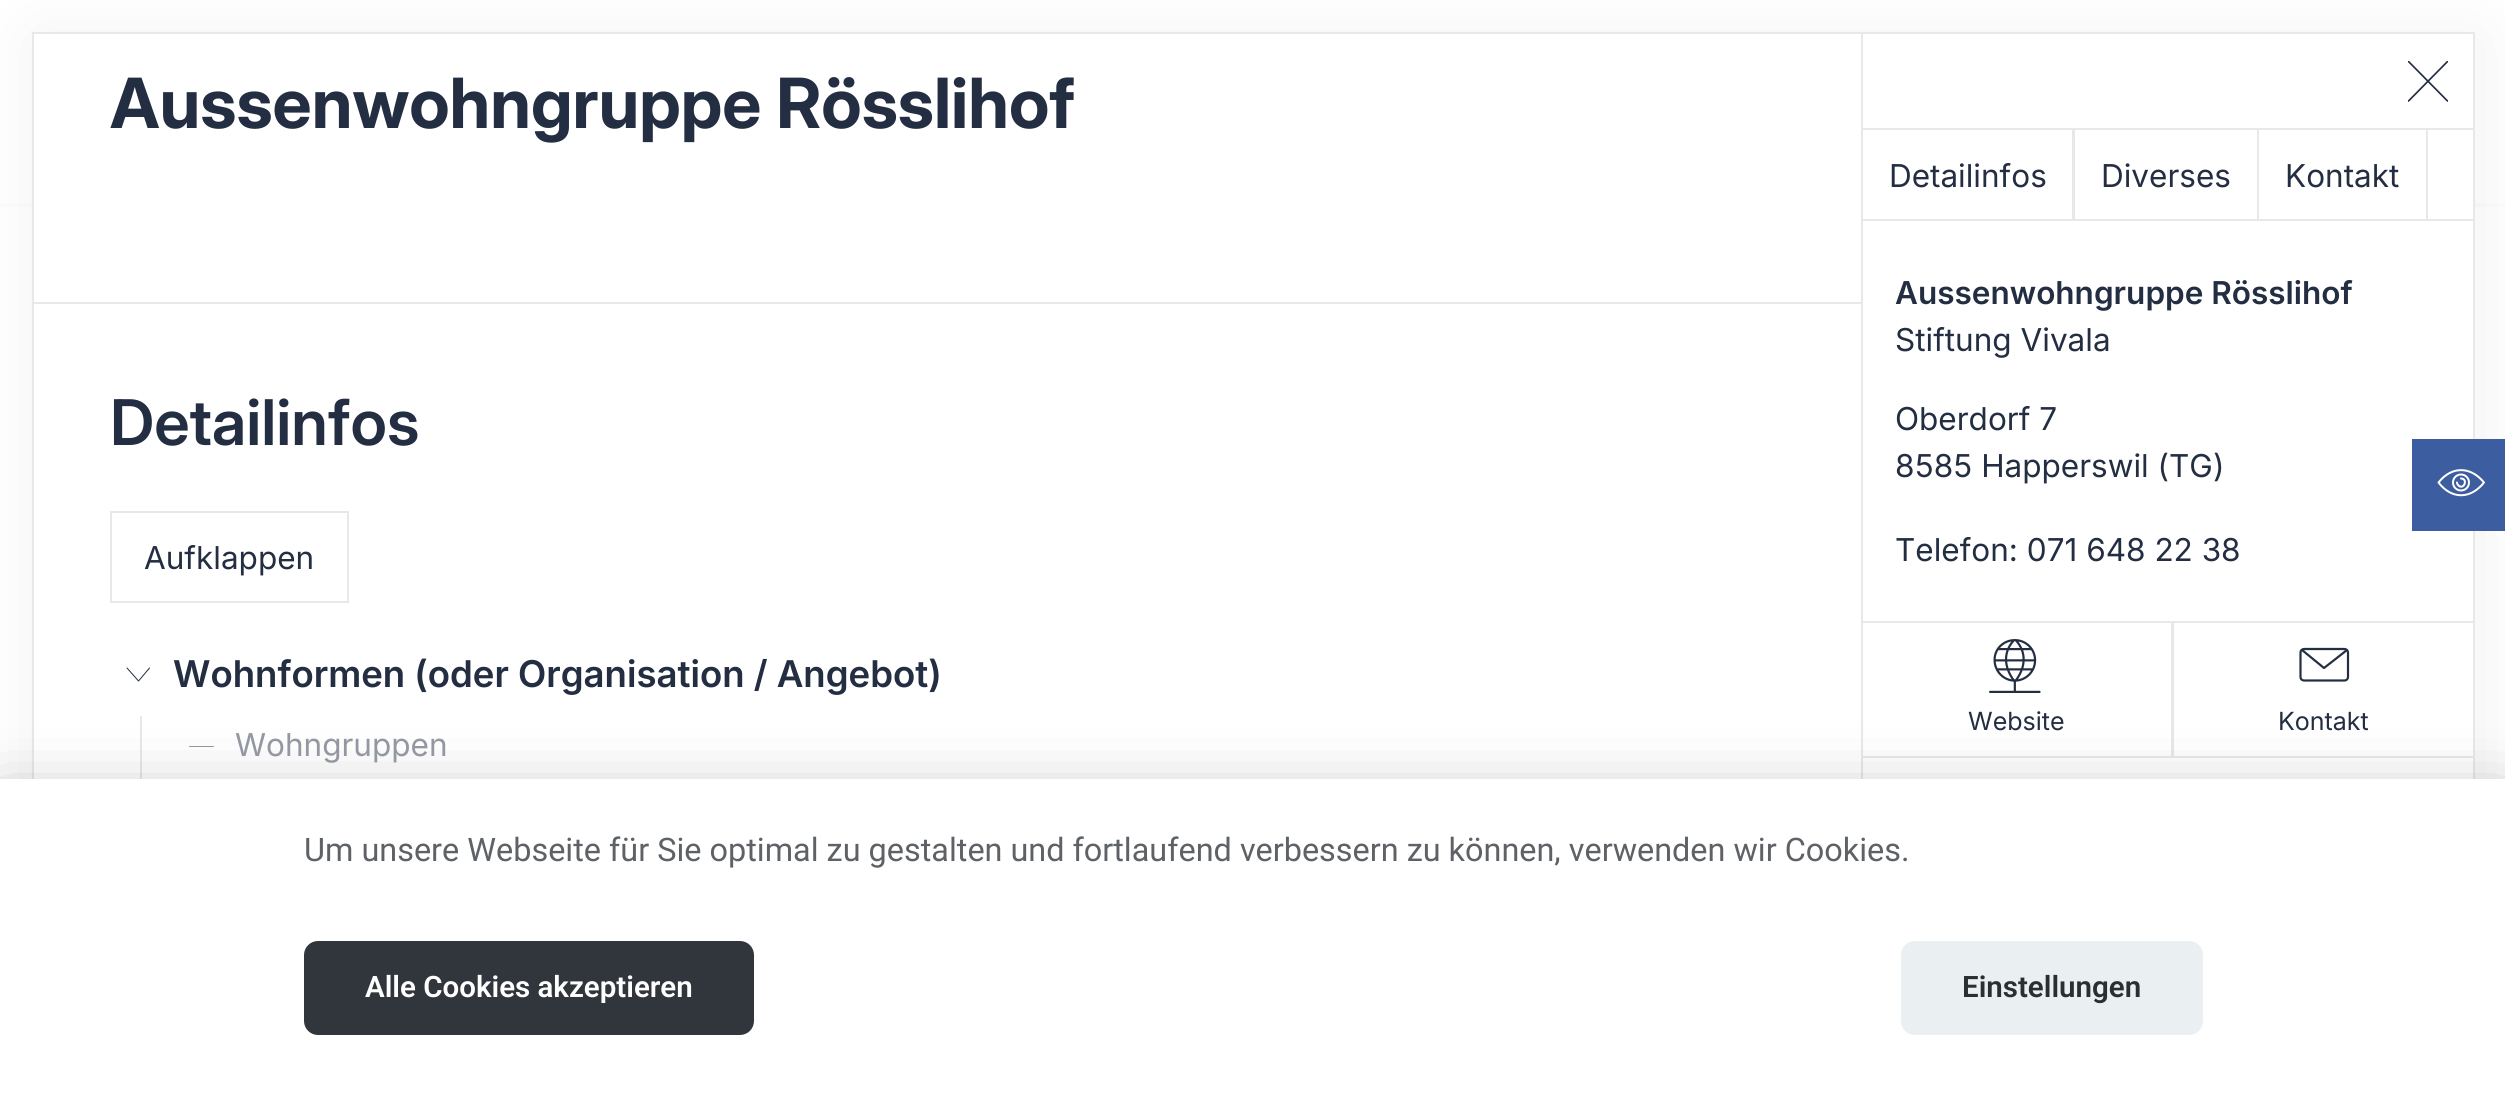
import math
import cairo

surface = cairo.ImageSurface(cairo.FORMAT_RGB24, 2505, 1097)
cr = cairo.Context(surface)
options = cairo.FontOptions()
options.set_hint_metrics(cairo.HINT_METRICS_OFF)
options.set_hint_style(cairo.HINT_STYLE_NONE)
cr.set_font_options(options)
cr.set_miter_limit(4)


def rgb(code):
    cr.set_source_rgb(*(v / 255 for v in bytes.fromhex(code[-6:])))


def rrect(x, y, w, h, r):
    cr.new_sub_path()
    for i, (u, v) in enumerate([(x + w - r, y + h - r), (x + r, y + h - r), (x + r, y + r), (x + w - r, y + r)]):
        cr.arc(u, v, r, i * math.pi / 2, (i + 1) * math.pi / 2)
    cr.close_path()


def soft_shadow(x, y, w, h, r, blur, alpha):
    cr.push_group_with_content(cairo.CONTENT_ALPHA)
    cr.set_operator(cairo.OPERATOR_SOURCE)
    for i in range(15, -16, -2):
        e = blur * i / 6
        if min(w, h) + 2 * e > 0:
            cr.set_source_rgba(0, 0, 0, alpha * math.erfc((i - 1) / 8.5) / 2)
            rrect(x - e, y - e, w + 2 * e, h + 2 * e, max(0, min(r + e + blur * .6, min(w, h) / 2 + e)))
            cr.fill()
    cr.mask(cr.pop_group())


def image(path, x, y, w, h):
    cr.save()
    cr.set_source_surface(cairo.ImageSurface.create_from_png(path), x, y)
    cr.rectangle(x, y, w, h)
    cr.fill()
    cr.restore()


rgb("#ffffff")
cr.paint()
rgb("#fbfcfc")
cr.rectangle(0, 203, 2505, 4)
cr.fill()
rgb("#242e42")
soft_shadow(36, 36, 2444, 1035, 0, 34, 0.07)
rgb("#ffffff")
cr.rectangle(34, 34, 1827, 745)
cr.fill()
cr.rectangle(33, 33, 2441, 1033)
rgb("#e7e8ea")
cr.stroke()
cr.rectangle(32, 302, 1831, 2)
cr.fill()
cr.rectangle(111, 512, 237, 90)
cr.stroke()
cr.new_path()
cr.move_to(127, 668)
cr.line_to(138.5, 681)
cr.line_to(149.5, 668)
rgb("#242e42")
cr.set_line_width(1)
cr.set_line_cap(cairo.LINE_CAP_ROUND)
cr.set_line_join(cairo.LINE_JOIN_ROUND)
cr.stroke()
rgb("#e7e8ea")
cr.rectangle(140, 716, 2, 63)
cr.fill()
cr.new_path()
cr.move_to(213.5, 746.5)
cr.line_to(189.5, 746.5)
rgb("#9297a1")
cr.stroke()
rgb("#ffffff")
cr.rectangle(1863, 34, 610, 745)
cr.fill()
rgb("#e7e8ea")
cr.rectangle(1861, 34, 2, 745)
cr.fill()
cr.save()
cr.rectangle(2408, 61, 40, 41)
cr.clip()
cr.new_path()
cr.move_to(2408.5, 61.5)
cr.line_to(2447.5, 101)
cr.move_to(2447.5, 61.5)
cr.line_to(2408.5, 101)
rgb("#242e42")
cr.set_line_width(1.7)
cr.stroke()
cr.restore()
cr.rectangle(1862, 129, 212, 91)
cr.set_line_width(2)
cr.set_line_cap(cairo.LINE_CAP_BUTT)
cr.set_line_join(cairo.LINE_JOIN_MITER)
cr.stroke()
cr.rectangle(2073, 129, 185, 91)
cr.stroke()
cr.rectangle(2427, 129, 47, 91)
cr.stroke()
cr.rectangle(2258, 129, 169, 91)
cr.stroke()
cr.save()
cr.rectangle(1863, 221, 610, 715)
cr.clip()
cr.rectangle(1862, 622, 311, 135)
cr.stroke()
cr.restore()
image("img/1.png", 1989, 639, 52, 54)
cr.save()
cr.rectangle(1863, 221, 610, 715)
cr.clip()
cr.rectangle(2172, 622, 304, 135)
cr.stroke()
cr.restore()
cr.new_path()
cr.move_to(2348, 677)
cr.curve_to(2348, 679, 2346.5, 680.5, 2344.5, 680.5)
cr.line_to(2304, 680.5)
cr.curve_to(2302, 680.5, 2300.5, 679, 2300.5, 677)
cr.line_to(2300.5, 652.5)
cr.curve_to(2300.5, 650.5, 2302, 649, 2304, 649)
cr.line_to(2344.5, 649)
cr.curve_to(2346.5, 649, 2348, 650.5, 2348, 652.5)
cr.close_path()
cr.move_to(2347, 650)
cr.line_to(2324, 668)
cr.line_to(2302, 650)
rgb("#242e42")
cr.set_line_width(2.2)
cr.set_line_cap(cairo.LINE_CAP_ROUND)
cr.set_line_join(cairo.LINE_JOIN_ROUND)
cr.stroke()
rgb("#3c5d9f")
cr.rectangle(2412, 439, 93, 92)
cr.fill()
cr.new_path()
cr.move_to(2484, 482.5)
cr.curve_to(2470.5, 499.5, 2451.5, 499.5, 2438.5, 482.5)
cr.curve_to(2451.5, 466, 2470.5, 466, 2484, 482.5)
cr.close_path()
rgb("#ffffff")
cr.set_line_width(2)
cr.stroke()
cr.arc(2461, 482.5, 8, 0, 2 * math.pi)
cr.set_line_cap(cairo.LINE_CAP_BUTT)
cr.set_line_join(cairo.LINE_JOIN_MITER)
cr.stroke()
cr.new_path()
cr.move_to(2461, 478.5)
cr.curve_to(2468, 478.5, 2464.5, 489.5, 2459, 486)
cr.curve_to(2458, 485, 2457, 484, 2457, 482.5)
cr.set_line_cap(cairo.LINE_CAP_ROUND)
cr.set_line_join(cairo.LINE_JOIN_ROUND)
cr.stroke()
rgb("#000002")
soft_shadow(0, 801, 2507, 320, 0, 34, 0.3)
rgb("#ffffff")
cr.rectangle(0, 779, 2505, 318)
cr.fill()
rgb("#30363c")
rrect(305, 942, 448, 92, 13)
cr.fill_preserve()
cr.set_line_cap(cairo.LINE_CAP_BUTT)
cr.set_line_join(cairo.LINE_JOIN_MITER)
cr.stroke()
rgb("#eaeff2")
rrect(1902, 942, 300, 92, 13)
cr.fill_preserve()
cr.stroke()
cr.select_font_face("Inter", cairo.FONT_SLANT_NORMAL, cairo.FONT_WEIGHT_BOLD)
cr.set_font_size(69.25)
rgb("#242e42")
cr.move_to(110, 128)
cr.show_text("Aussenwohngruppe Rösslihof")
cr.select_font_face("Inter SemiBold")
cr.set_font_size(63)
cr.move_to(110, 445)
cr.show_text("Detailinfos")
cr.select_font_face("Inter")
cr.set_font_size(31.5)
cr.move_to(144, 569)
cr.show_text("Aufklappen")
cr.select_font_face("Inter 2 SemiBold")
cr.set_font_size(36.85)
cr.move_to(173, 687)
cr.show_text("Wohnformen (oder Organisation / Angebot)")
cr.select_font_face("Inter")
cr.set_font_size(31.5)
rgb("#9297a1")
cr.move_to(235, 756)
cr.show_text("Wohngruppen")
rgb("#242e42")
for x, y, s in [
    (1889, 187, "Detailinfos"),
    (2101, 187, "Diverses"),
    (2285, 187, "Kontakt"),
]:
    cr.move_to(x, y)
    cr.show_text(s)
cr.select_font_face("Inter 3 SemiBold")
cr.move_to(1895, 304)
cr.show_text("Aussenwohngruppe Rösslihof")
cr.select_font_face("Inter")
for x, y, s in [
    (1895, 351, "Stiftung Vivala"),
    (1895, 430, "Oberdorf 7"),
    (1895, 477, "8585 Happerswil (TG)"),
    (1895, 561, "Telefon: 071 648 22 38"),
]:
    cr.move_to(x, y)
    cr.show_text(s)
cr.set_font_size(25)
cr.move_to(1968, 730)
cr.show_text("Website")
cr.move_to(2278, 730)
cr.show_text("Kontakt")
cr.select_font_face("Roboto")
cr.set_font_size(32.4)
rgb("#5e6266")
cr.move_to(304, 861)
cr.show_text("Um unsere Webseite für Sie optimal zu gestalten und fortlaufend verbessern zu können, verwenden wir Cookies.")
cr.select_font_face("Roboto SemiBold")
cr.set_font_size(29.5)
rgb("#ffffff")
cr.move_to(365, 997)
cr.show_text("Alle Cookies akzeptieren")
rgb("#2c2f31")
cr.move_to(1962, 997)
cr.show_text("Einstellungen")
surface.write_to_png("page.png")
